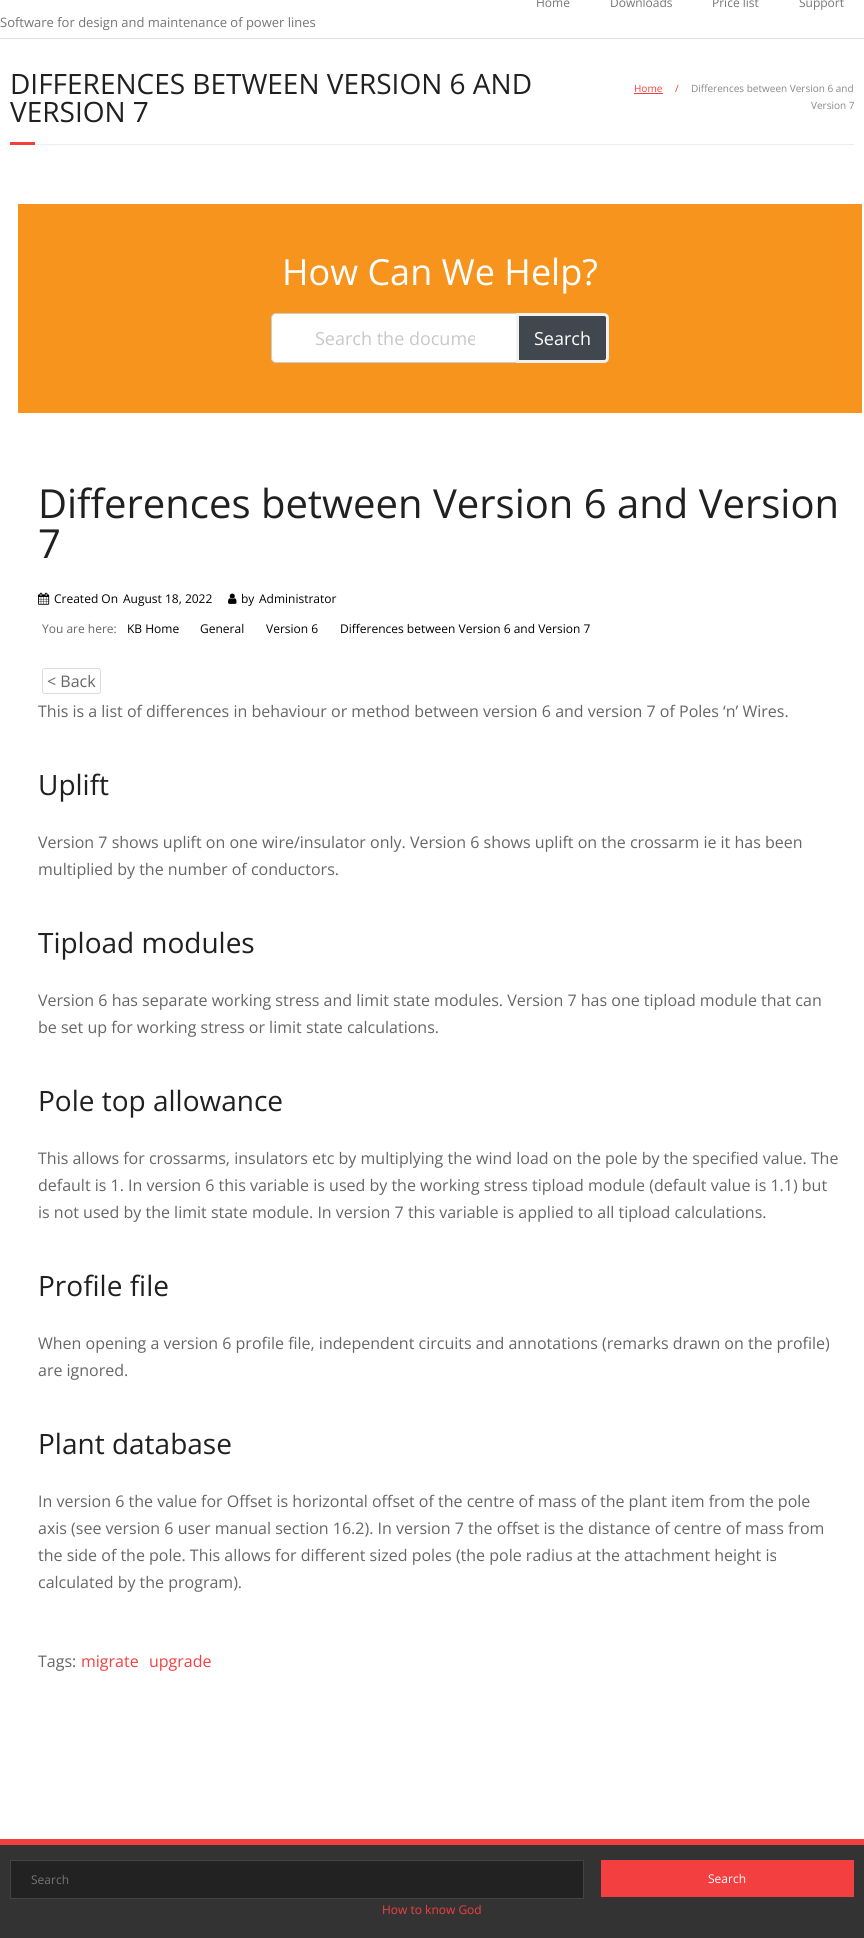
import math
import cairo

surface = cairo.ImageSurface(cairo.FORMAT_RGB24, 864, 1938)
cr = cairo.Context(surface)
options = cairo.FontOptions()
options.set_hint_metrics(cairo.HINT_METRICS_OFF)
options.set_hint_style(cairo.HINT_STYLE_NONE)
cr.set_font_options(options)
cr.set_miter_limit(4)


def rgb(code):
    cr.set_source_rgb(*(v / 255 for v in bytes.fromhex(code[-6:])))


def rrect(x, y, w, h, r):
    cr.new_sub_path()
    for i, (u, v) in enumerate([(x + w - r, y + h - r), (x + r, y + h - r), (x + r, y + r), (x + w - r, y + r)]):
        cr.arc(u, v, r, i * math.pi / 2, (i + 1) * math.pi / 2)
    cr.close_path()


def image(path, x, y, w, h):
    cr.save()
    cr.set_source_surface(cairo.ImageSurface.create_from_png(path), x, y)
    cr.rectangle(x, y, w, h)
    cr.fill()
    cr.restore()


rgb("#ffffff")
cr.paint()
for x, y, w, h, color in [
    (0, 38, 864, 1, "#e0e0e0"),
    (634, 93, 29, 1, "#f33f3f"),
    (10, 142, 25, 3, "#f33f3f"),
    (35, 144, 819, 1, "#eeeeee"),
    (18, 204, 844, 209, "#f7941d"),
]:
    rgb(color)
    cr.rectangle(x, y, w, h)
    cr.fill()
rgb("#ffffff")
rrect(271.5, 313.5, 247, 49, 4.5)
cr.fill_preserve()
rgb("#cccccc")
cr.set_line_width(1)
cr.stroke()
rgb("#40474f")
cr.new_path()
cr.move_to(517.5, 314.5)
cr.line_to(604, 314.5)
cr.curve_to(606, 314.5, 607.5, 316, 607.5, 318)
cr.line_to(607.5, 358)
cr.curve_to(607.5, 360, 606, 361.5, 604, 361.5)
cr.line_to(517.5, 361.5)
cr.close_path()
cr.fill_preserve()
rgb("#f1f1f1")
cr.set_line_width(3)
cr.stroke()
image("img/1.png", 38, 592, 12, 13)
image("img/2.png", 228, 593, 9, 11)
rrect(42.5, 668.5, 58, 25, 2.5)
rgb("#dcdcdc")
cr.set_line_width(1)
cr.stroke()
rgb("#333333")
cr.rectangle(0, 1845, 864, 93)
cr.fill()
rgb("#f33f3f")
cr.rectangle(0, 1839, 864, 6)
cr.fill()
rgb("#222222")
cr.rectangle(10.5, 1860.5, 573, 38)
cr.fill_preserve()
rgb("#444444")
cr.stroke()
rgb("#f33f3f")
cr.rectangle(601, 1860, 253, 37)
cr.fill()
cr.select_font_face("Open Sans")
cr.set_font_size(12)
rgb("#757575")
for x, y, s in [
    (536, 7, "Home"),
    (610, 7, "Downloads"),
    (712, 7, "Price list"),
    (799, 7, "Support"),
]:
    cr.move_to(x, y)
    cr.show_text(s)
cr.set_font_size(13)
cr.move_to(0, 27)
cr.show_text("Software for design and maintenance of power lines")
cr.set_font_size(28)
rgb("#202020")
cr.move_to(10, 94)
cr.show_text("DIFFERENCES BETWEEN VERSION 6 AND")
cr.move_to(10, 122)
cr.show_text("VERSION 7")
cr.set_font_size(10)
rgb("#f33f3f")
cr.move_to(634, 92)
cr.show_text("Home")
cr.move_to(675, 92)
cr.show_text("/")
rgb("#888888")
cr.move_to(691, 92)
cr.show_text("Differences between Version 6 and")
cr.move_to(811, 109)
cr.show_text("Version 7")
cr.set_font_size(36)
rgb("#ffffff")
cr.move_to(282, 285)
cr.show_text("How Can We Help?")
cr.save()
cr.rectangle(315, 326, 160, 24)
cr.clip()
cr.set_font_size(18)
rgb("#c9c7c7")
cr.move_to(315, 345)
cr.show_text("Search the docume")
cr.restore()
cr.set_font_size(18)
cr.move_to(534, 345)
cr.show_text("Search")
cr.set_font_size(40)
rgb("#202020")
cr.move_to(38, 518)
cr.show_text("Differences between Version 6 and Version")
cr.move_to(38, 558)
cr.show_text("7")
cr.set_font_size(12)
rgb("#000000")
for x, y, s in [
    (54, 603, "Created On"),
    (123, 603, "August 18, 2022"),
    (241, 603, "by"),
    (259, 603, "Administrator"),
]:
    cr.move_to(x, y)
    cr.show_text(s)
rgb("#666666")
cr.move_to(42, 633)
cr.show_text("You are here:")
rgb("#000000")
for x, y, s in [
    (127, 633, "KB Home"),
    (200, 633, "General"),
    (266, 633, "Version 6"),
    (340, 633, "Differences between Version 6 and Version 7"),
]:
    cr.move_to(x, y)
    cr.show_text(s)
cr.set_font_size(16)
rgb("#666666")
cr.move_to(47, 687)
cr.show_text("< Back")
cr.move_to(38, 717)
cr.show_text("This is a list of differences in behaviour or method between version 6 and version 7 of Poles ‘n’ Wires.")
cr.set_font_size(28)
rgb("#202020")
cr.move_to(38, 795)
cr.show_text("Uplift")
cr.set_font_size(16)
rgb("#666666")
cr.move_to(38, 848)
cr.show_text("Version 7 shows uplift on one wire/insulator only. Version 6 shows uplift on the crossarm ie it has been")
cr.move_to(38, 875)
cr.show_text("multiplied by the number of conductors.")
cr.set_font_size(28)
rgb("#202020")
cr.move_to(38, 953)
cr.show_text("Tipload modules")
cr.set_font_size(16)
rgb("#666666")
cr.move_to(38, 1006)
cr.show_text("Version 6 has separate working stress and limit state modules. Version 7 has one tipload module that can")
cr.move_to(38, 1033)
cr.show_text("be set up for working stress or limit state calculations.")
cr.set_font_size(28)
rgb("#202020")
cr.move_to(38, 1111)
cr.show_text("Pole top allowance")
cr.set_font_size(16)
rgb("#666666")
for x, y, s in [
    (38, 1164, "This allows for crossarms, insulators etc by multiplying the wind load on the pole by the specified value. The"),
    (38, 1191, "default is 1. In version 6 this variable is used by the working stress tipload module (default value is 1.1) but"),
    (38, 1218, "is not used by the limit state module. In version 7 this variable is applied to all tipload calculations."),
]:
    cr.move_to(x, y)
    cr.show_text(s)
cr.set_font_size(28)
rgb("#202020")
cr.move_to(38, 1296)
cr.show_text("Profile file")
cr.set_font_size(16)
rgb("#666666")
cr.move_to(38, 1349)
cr.show_text("When opening a version 6 profile file, independent circuits and annotations (remarks drawn on the profile)")
cr.move_to(38, 1376)
cr.show_text("are ignored.")
cr.set_font_size(28)
rgb("#202020")
cr.move_to(38, 1454)
cr.show_text("Plant database")
cr.set_font_size(16)
rgb("#666666")
for x, y, s in [
    (38, 1507, "In version 6 the value for Offset is horizontal offset of the centre of mass of the plant item from the pole"),
    (38, 1534, "axis (see version 6 user manual section 16.2). In version 7 the offset is the distance of centre of mass from"),
    (38, 1561, "the side of the pole. This allows for different sized poles (the pole radius at the attachment height is"),
    (38, 1588, "calculated by the program)."),
    (38, 1667, "Tags:"),
]:
    cr.move_to(x, y)
    cr.show_text(s)
rgb("#f33f3f")
cr.move_to(81, 1667)
cr.show_text("migrate")
cr.move_to(149, 1667)
cr.show_text("upgrade")
cr.set_font_size(12)
rgb("#757575")
cr.move_to(31, 1884)
cr.show_text("Search")
rgb("#ffffff")
cr.move_to(708, 1883)
cr.show_text("Search")
rgb("#f33f3f")
cr.move_to(382, 1914)
cr.show_text("How to know God")
surface.write_to_png("page.png")
